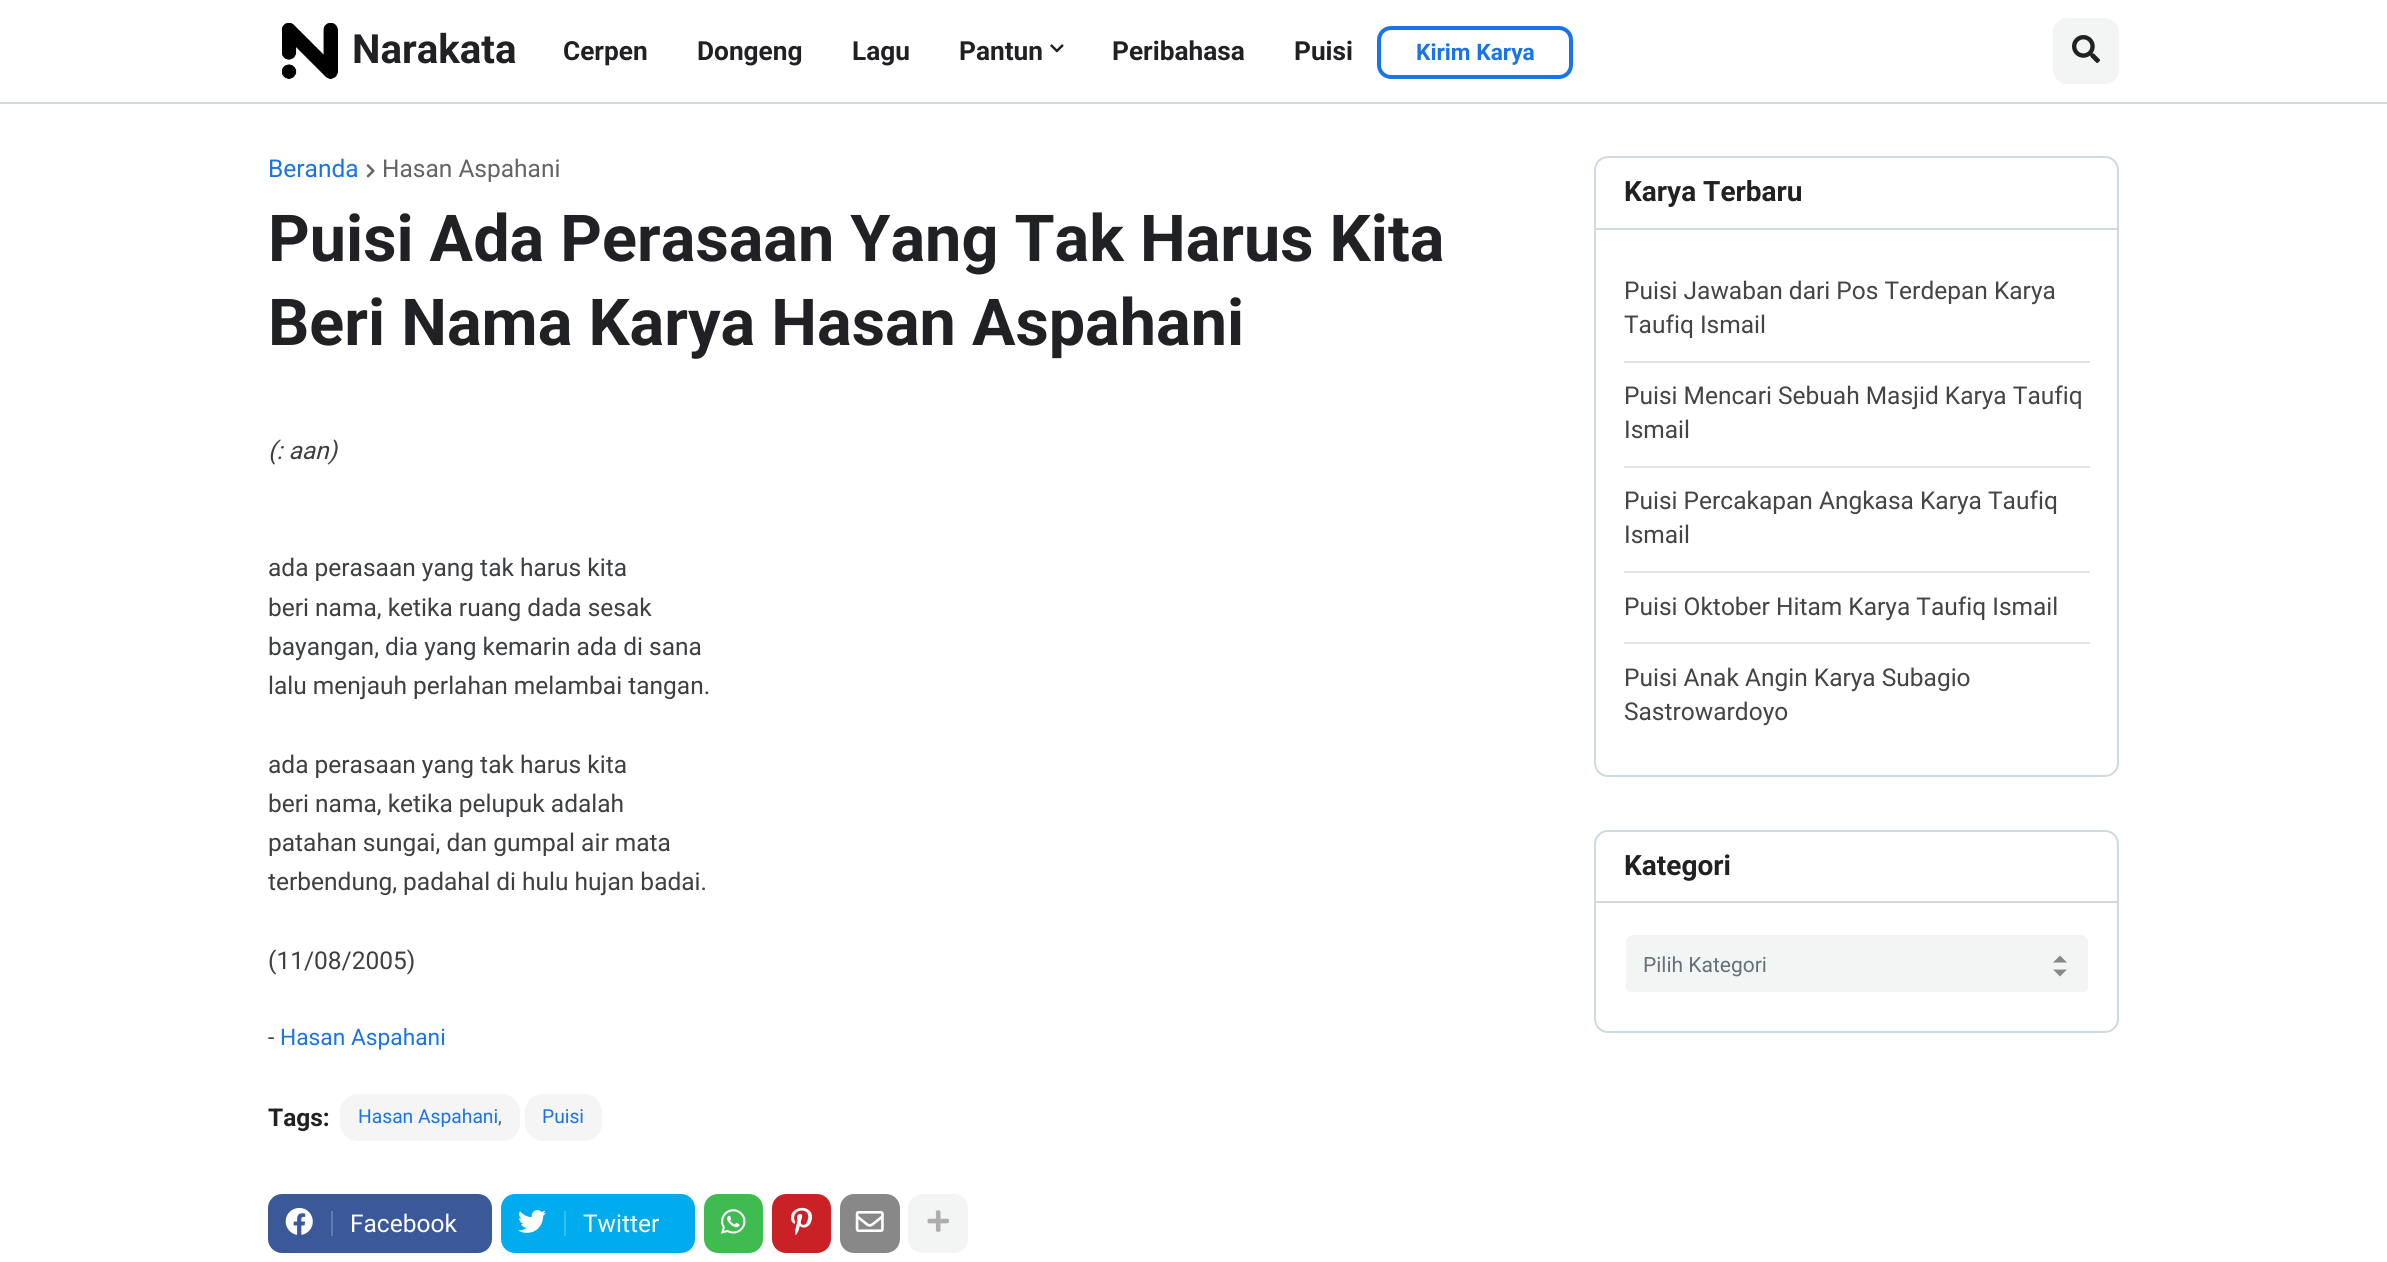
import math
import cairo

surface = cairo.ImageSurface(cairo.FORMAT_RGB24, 2387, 1262)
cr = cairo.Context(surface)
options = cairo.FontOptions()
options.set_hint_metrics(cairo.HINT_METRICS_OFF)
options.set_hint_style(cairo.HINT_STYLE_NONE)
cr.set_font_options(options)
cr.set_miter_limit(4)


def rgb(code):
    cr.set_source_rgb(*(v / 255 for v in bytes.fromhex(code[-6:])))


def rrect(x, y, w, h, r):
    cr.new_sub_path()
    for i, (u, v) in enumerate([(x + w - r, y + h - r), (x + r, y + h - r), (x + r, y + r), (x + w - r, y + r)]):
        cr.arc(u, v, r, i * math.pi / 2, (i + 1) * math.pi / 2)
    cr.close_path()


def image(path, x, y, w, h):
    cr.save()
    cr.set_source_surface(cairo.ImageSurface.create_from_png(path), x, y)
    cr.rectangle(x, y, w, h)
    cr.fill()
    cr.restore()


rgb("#ffffff")
cr.paint()
rgb("#cfd9e0")
cr.rectangle(0, 102, 2387, 2)
cr.fill()
image("img/1.png", 282, 23, 56, 56)
image("img/2.png", 1050, 44, 14, 9)
rrect(1379, 28, 192, 49, 12)
rgb("#1a73e8")
cr.set_line_width(4)
cr.stroke()
rgb("#f3f5f5")
rrect(2053, 18, 66, 66, 14)
cr.fill()
image("img/3.png", 2072, 35, 28, 28)
image("img/4.png", 366, 164, 9, 14)
rgb("#f5f5f5")
rrect(340, 1094, 180, 47, 18)
cr.fill()
rrect(525, 1094, 77, 47, 18)
cr.fill()
rgb("#3b5999")
rrect(268, 1194, 224, 59, 14)
cr.fill()
image("img/5.png", 285, 1207, 28, 28)
rgb("#627aad")
cr.rectangle(331, 1211, 2, 25)
cr.fill()
rgb("#00acee")
rrect(501, 1194, 194, 59, 14)
cr.fill()
image("img/6.png", 518, 1210, 28, 23)
rgb("#33bdf1")
cr.rectangle(564, 1211, 2, 25)
cr.fill()
rgb("#3fbb50")
rrect(704, 1194, 59, 59, 14)
cr.fill()
image("img/7.png", 721, 1209, 25, 25)
rgb("#ca2127")
rrect(772, 1194, 59, 59, 14)
cr.fill()
image("img/8.png", 791, 1207, 21, 29)
rgb("#888888")
rrect(840, 1194, 60, 59, 14)
cr.fill()
image("img/9.png", 855, 1211, 29, 21)
rgb("#f3f5f5")
rrect(908, 1194, 60, 59, 14)
cr.fill()
image("img/10.png", 927, 1210, 22, 22)
rrect(1595, 157, 523, 619, 13)
rgb("#cfd9e0")
cr.set_line_width(2)
cr.stroke()
for x, y, w, h, color in [
    (1596, 228, 522, 2, "#cfd9e0"),
    (1624, 361, 466, 2, "#e3e3e3"),
    (1624, 466, 466, 2, "#e3e3e3"),
    (1624, 571, 466, 2, "#e3e3e3"),
    (1624, 642, 466, 2, "#e3e3e3"),
]:
    rgb(color)
    cr.rectangle(x, y, w, h)
    cr.fill()
rrect(1595, 831, 523, 201, 13)
rgb("#cfd9e0")
cr.stroke()
cr.rectangle(1596, 901, 522, 2)
cr.fill()
cr.save()
rrect(1626, 933, 462, 59, 4)
cr.clip()
rgb("#f3f5f5")
rrect(1626, 935, 462, 63, 7)
cr.fill()
cr.restore()
rgb("#888888")
cr.new_path()
cr.move_to(2067, 962.5)
cr.line_to(2053, 962.5)
cr.line_to(2060, 955.5)
cr.close_path()
cr.move_to(2053, 969.5)
cr.line_to(2067, 969.5)
cr.line_to(2060, 976.5)
cr.close_path()
cr.fill()
cr.select_font_face("Roboto", cairo.FONT_SLANT_NORMAL, cairo.FONT_WEIGHT_BOLD)
cr.set_font_size(40.25)
rgb("#202124")
cr.move_to(352, 63)
cr.show_text("Narakata")
cr.set_font_size(26.25)
for x, y, s in [
    (563, 60, "Cerpen"),
    (697, 60, "Dongeng"),
    (852, 60, "Lagu"),
    (959, 60, "Pantun"),
    (1112, 60, "Peribahasa"),
    (1294, 60, "Puisi"),
]:
    cr.move_to(x, y)
    cr.show_text(s)
cr.set_font_size(22.75)
rgb("#1a73e8")
cr.move_to(1416, 60)
cr.show_text("Kirim Karya")
cr.select_font_face("Roboto")
cr.set_font_size(24.5)
cr.move_to(268, 177)
cr.show_text("Beranda")
rgb("#636466")
cr.move_to(382, 177)
cr.show_text("Hasan Aspahani")
cr.select_font_face("Roboto", cairo.FONT_SLANT_NORMAL, cairo.FONT_WEIGHT_BOLD)
cr.set_font_size(64.75)
rgb("#202124")
cr.move_to(268, 261)
cr.show_text("Puisi Ada Perasaan Yang Tak Harus Kita")
cr.move_to(268, 345)
cr.show_text("Beri Nama Karya Hasan Aspahani")
cr.select_font_face("Roboto", cairo.FONT_SLANT_ITALIC)
cr.set_font_size(24.5)
rgb("#3c4043")
cr.move_to(268, 459)
cr.show_text("(: aan)")
cr.select_font_face("Roboto")
for x, y, s in [
    (268, 576, "ada perasaan yang tak harus kita"),
    (268, 616, "beri nama, ketika ruang dada sesak"),
    (268, 655, "bayangan, dia yang kemarin ada di sana"),
    (268, 694, "lalu menjauh perlahan melambai tangan."),
    (268, 773, "ada perasaan yang tak harus kita"),
    (268, 812, "beri nama, ketika pelupuk adalah"),
    (268, 851, "patahan sungai, dan gumpal air mata"),
    (268, 890, "terbendung, padahal di hulu hujan badai."),
    (268, 969, "(11/08/2005)"),
]:
    cr.move_to(x, y)
    cr.show_text(s)
cr.set_font_size(22.75)
cr.move_to(268, 1045)
cr.show_text("-")
rgb("#1a73e8")
cr.move_to(280, 1045)
cr.show_text("Hasan Aspahani")
cr.select_font_face("Roboto", cairo.FONT_SLANT_NORMAL, cairo.FONT_WEIGHT_BOLD)
cr.set_font_size(24.5)
rgb("#202124")
cr.move_to(268, 1126)
cr.show_text("Tags:")
cr.select_font_face("Roboto")
cr.set_font_size(19.25)
rgb("#1a73e8")
cr.move_to(358, 1123)
cr.show_text("Hasan Aspahani")
rgb("#636466")
cr.move_to(498, 1123)
cr.show_text(",")
rgb("#1a73e8")
cr.move_to(542, 1123)
cr.show_text("Puisi")
cr.set_font_size(24.5)
rgb("#ffffff")
cr.move_to(350, 1232)
cr.show_text("Facebook")
cr.move_to(583, 1232)
cr.show_text("Twitter")
cr.select_font_face("Roboto", cairo.FONT_SLANT_NORMAL, cairo.FONT_WEIGHT_BOLD)
cr.set_font_size(28)
rgb("#202124")
cr.move_to(1624, 201)
cr.show_text("Karya Terbaru")
cr.select_font_face("Roboto")
cr.set_font_size(24.5)
rgb("#444444")
for x, y, s in [
    (1624, 299, "Puisi Jawaban dari Pos Terdepan Karya"),
    (1624, 333, "Taufiq Ismail"),
    (1624, 404, "Puisi Mencari Sebuah Masjid Karya Taufiq"),
    (1624, 438, "Ismail"),
    (1624, 509, "Puisi Percakapan Angkasa Karya Taufiq"),
    (1624, 543, "Ismail"),
    (1624, 615, "Puisi Oktober Hitam Karya Taufiq Ismail"),
    (1624, 686, "Puisi Anak Angin Karya Subagio"),
    (1624, 720, "Sastrowardoyo"),
]:
    cr.move_to(x, y)
    cr.show_text(s)
cr.select_font_face("Roboto", cairo.FONT_SLANT_NORMAL, cairo.FONT_WEIGHT_BOLD)
cr.set_font_size(28)
rgb("#202124")
cr.move_to(1624, 875)
cr.show_text("Kategori")
cr.select_font_face("Roboto")
cr.set_font_size(21)
rgb("#62717a")
cr.move_to(1643, 972)
cr.show_text("Pilih Kategori")
surface.write_to_png("page.png")
